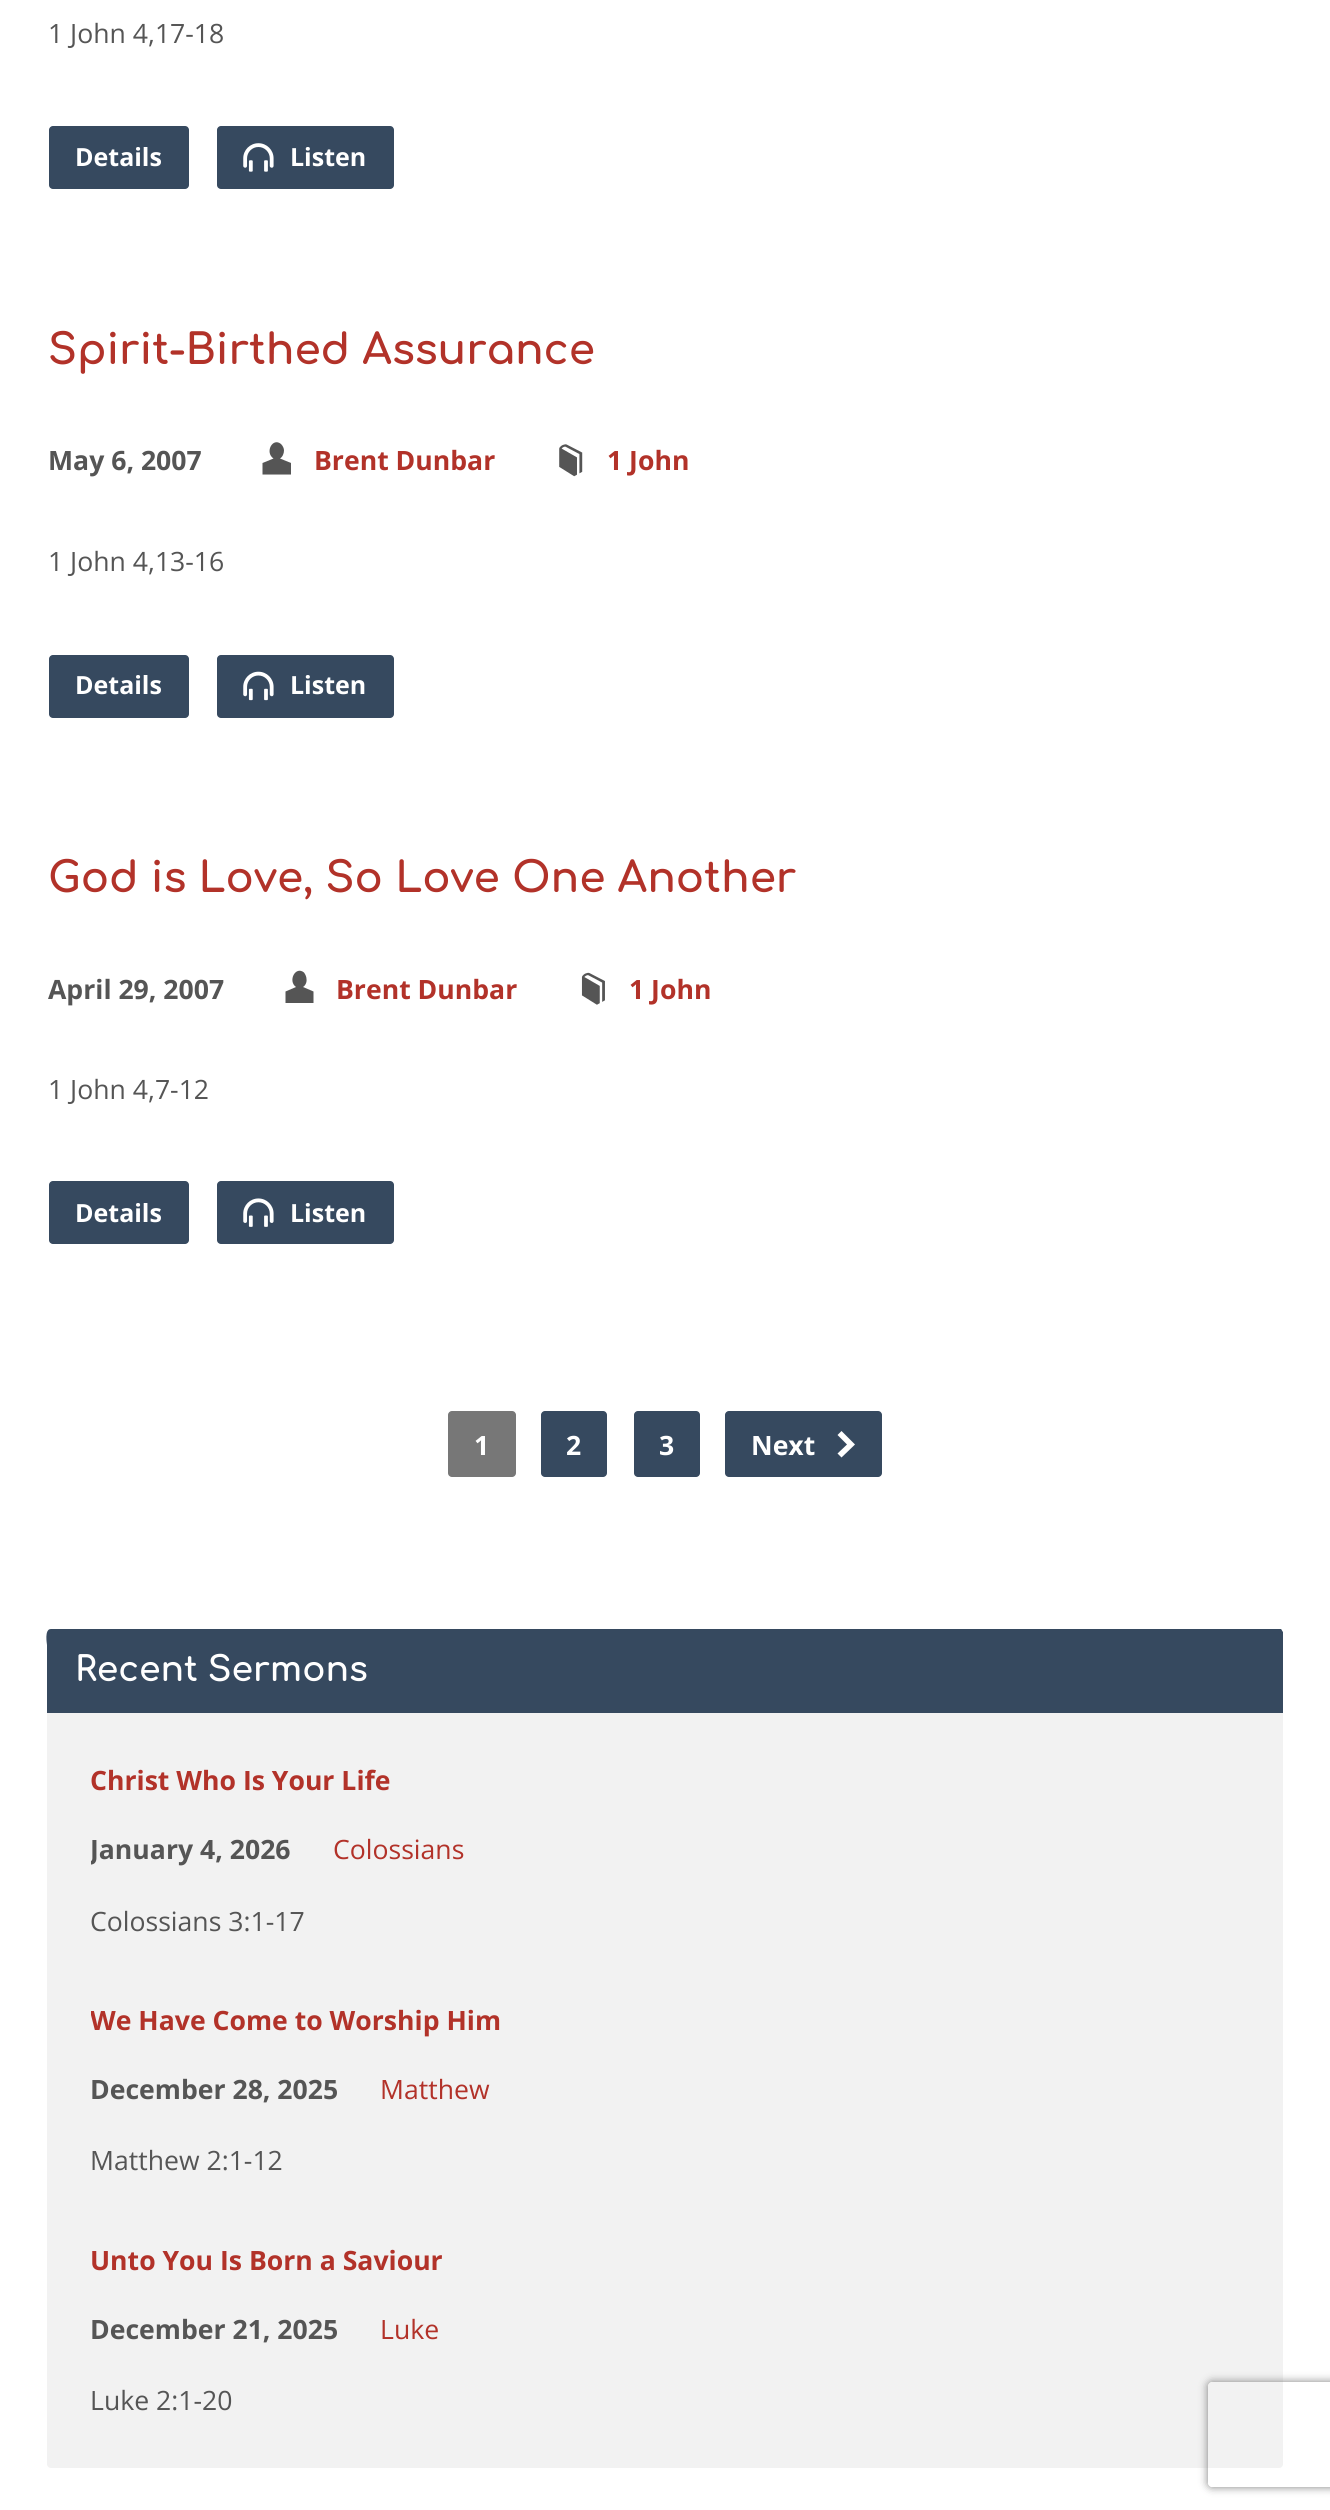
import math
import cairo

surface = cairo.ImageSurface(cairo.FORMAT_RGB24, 1330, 2510)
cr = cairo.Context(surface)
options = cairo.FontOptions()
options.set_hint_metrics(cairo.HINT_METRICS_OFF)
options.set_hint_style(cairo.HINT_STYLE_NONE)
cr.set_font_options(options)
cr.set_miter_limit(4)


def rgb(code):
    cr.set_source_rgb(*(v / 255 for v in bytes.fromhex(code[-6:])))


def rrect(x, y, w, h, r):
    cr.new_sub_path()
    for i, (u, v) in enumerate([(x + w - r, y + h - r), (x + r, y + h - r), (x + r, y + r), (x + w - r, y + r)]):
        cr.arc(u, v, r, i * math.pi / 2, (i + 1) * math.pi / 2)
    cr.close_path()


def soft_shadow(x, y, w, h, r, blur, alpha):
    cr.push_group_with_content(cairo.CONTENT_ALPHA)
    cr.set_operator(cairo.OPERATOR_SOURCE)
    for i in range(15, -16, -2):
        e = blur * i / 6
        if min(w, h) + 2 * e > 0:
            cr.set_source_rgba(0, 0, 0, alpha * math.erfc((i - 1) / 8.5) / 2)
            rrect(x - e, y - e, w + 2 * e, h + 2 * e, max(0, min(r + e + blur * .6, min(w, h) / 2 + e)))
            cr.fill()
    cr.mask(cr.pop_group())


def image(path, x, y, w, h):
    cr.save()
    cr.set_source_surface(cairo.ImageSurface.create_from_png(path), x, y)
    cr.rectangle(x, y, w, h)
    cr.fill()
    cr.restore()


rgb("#ffffff")
cr.paint()
rgb("#36495f")
rrect(49, 126, 140, 63, 4)
cr.fill()
rrect(217, 126, 177, 63, 4)
cr.fill()
image("img/1.png", 243, 143, 31, 29)
rgb("#555555")
cr.new_path()
cr.move_to(291, 463)
cr.line_to(291, 474.5)
cr.line_to(262.5, 474.5)
cr.line_to(262.5, 463)
cr.line_to(273.5, 458.5)
cr.curve_to(264.5, 452.5, 272.5, 437, 281, 444)
cr.curve_to(283, 446, 284, 448.5, 284, 450.5)
cr.curve_to(284, 453.5, 282.5, 457, 280, 458.5)
cr.close_path()
cr.fill()
image("img/2.png", 559, 444, 24, 33)
rgb("#36495f")
rrect(49, 655, 140, 63, 4)
cr.fill()
rrect(217, 655, 177, 63, 4)
cr.fill()
image("img/3.png", 243, 671, 31, 30)
rgb("#555555")
cr.new_path()
cr.move_to(313.5, 991.5)
cr.line_to(313.5, 1003)
cr.line_to(285.5, 1003)
cr.line_to(285.5, 991.5)
cr.line_to(296, 987)
cr.curve_to(287.5, 981, 295.5, 965.5, 304, 972.5)
cr.curve_to(305.5, 974.5, 306.5, 977, 306.5, 979)
cr.curve_to(307, 982, 305.5, 985.5, 303, 987)
cr.close_path()
cr.fill()
image("img/4.png", 581, 972, 24, 33)
rgb("#36495f")
rrect(49, 1181, 140, 63, 4)
cr.fill()
rrect(217, 1181, 177, 63, 4)
cr.fill()
image("img/5.png", 243, 1198, 31, 29)
rgb("#777777")
rrect(448, 1411, 68, 66, 4)
cr.fill()
rgb("#36495f")
rrect(541, 1411, 66, 66, 4)
cr.fill()
rrect(634, 1411, 66, 66, 4)
cr.fill()
rrect(725, 1411, 157, 66, 4)
cr.fill()
rgb("#ffffff")
cr.new_path()
cr.move_to(855, 1444.5)
cr.line_to(841.5, 1431)
cr.line_to(837.5, 1435)
cr.line_to(847, 1444.5)
cr.line_to(837.5, 1453.5)
cr.line_to(841.5, 1457.5)
cr.close_path()
cr.fill()
rgb("#f2f2f2")
cr.new_path()
cr.move_to(51, 1629)
cr.line_to(1281, 1629)
cr.curve_to(1282, 1630, 1282, 1631, 1283, 1632)
cr.line_to(1283, 2465)
cr.curve_to(1282, 2467, 1281, 2468, 1279, 2468)
cr.line_to(51, 2468)
cr.curve_to(49, 2468, 48, 2467, 47, 2465)
cr.line_to(47, 1632)
cr.curve_to(48, 1631, 48, 1630, 49, 1629)
cr.close_path()
cr.fill()
rgb("#36495f")
cr.new_path()
cr.move_to(51, 1629)
cr.line_to(1281, 1629)
cr.curve_to(1282, 1630, 1282, 1631, 1283, 1632)
cr.line_to(1283, 1713)
cr.line_to(47, 1713)
cr.line_to(47, 1645)
cr.curve_to(47, 1644, 44, 1629, 51, 1629)
cr.close_path()
cr.fill()
cr.save()
cr.set_fill_rule(cairo.FILL_RULE_EVEN_ODD)
cr.new_path()
cr.move_to(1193, 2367)
cr.line_to(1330, 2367)
cr.line_to(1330, 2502)
cr.line_to(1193, 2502)
cr.close_path()
cr.move_to(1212, 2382)
cr.line_to(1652, 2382)
cr.curve_to(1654, 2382, 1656, 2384, 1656, 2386)
cr.line_to(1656, 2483)
cr.curve_to(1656, 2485, 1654, 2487, 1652, 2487)
cr.line_to(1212, 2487)
cr.curve_to(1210, 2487, 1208, 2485, 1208, 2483)
cr.line_to(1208, 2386)
cr.curve_to(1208, 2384, 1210, 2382, 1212, 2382)
cr.close_path()
cr.clip()
rgb("#808080")
soft_shadow(1208, 2382, 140, 105, 4, 4.5, 1)
cr.restore()
cr.select_font_face("Open Sans")
cr.set_font_size(26.6)
rgb("#555555")
cr.move_to(48, 43)
cr.show_text("1 John 4,17-18")
cr.select_font_face("Open Sans", cairo.FONT_SLANT_NORMAL, cairo.FONT_WEIGHT_BOLD)
cr.set_font_size(25)
rgb("#ffffff")
cr.move_to(75, 166)
cr.show_text("Details")
cr.move_to(290, 166)
cr.show_text("Listen")
cr.select_font_face("Comfortaa", cairo.FONT_SLANT_NORMAL, cairo.FONT_WEIGHT_BOLD)
cr.set_font_size(42)
rgb("#b23229")
cr.move_to(48, 364)
cr.show_text("Spirit-Birthed Assurance")
cr.select_font_face("Open Sans", cairo.FONT_SLANT_NORMAL, cairo.FONT_WEIGHT_BOLD)
cr.set_font_size(26.6)
rgb("#555555")
cr.move_to(48, 470)
cr.show_text("May 6, 2007")
rgb("#b23229")
cr.move_to(314, 470)
cr.show_text("Brent Dunbar")
cr.move_to(607, 470)
cr.show_text("1 John")
cr.select_font_face("Open Sans")
rgb("#555555")
cr.move_to(48, 571)
cr.show_text("1 John 4,13-16")
cr.select_font_face("Open Sans", cairo.FONT_SLANT_NORMAL, cairo.FONT_WEIGHT_BOLD)
cr.set_font_size(25)
rgb("#ffffff")
cr.move_to(75, 694)
cr.show_text("Details")
cr.move_to(290, 694)
cr.show_text("Listen")
cr.select_font_face("Comfortaa", cairo.FONT_SLANT_NORMAL, cairo.FONT_WEIGHT_BOLD)
cr.set_font_size(42)
rgb("#b23229")
cr.move_to(48, 892)
cr.show_text("God is Love, So Love One Another")
cr.select_font_face("Open Sans", cairo.FONT_SLANT_NORMAL, cairo.FONT_WEIGHT_BOLD)
cr.set_font_size(26.6)
rgb("#555555")
cr.move_to(48, 999)
cr.show_text("April 29, 2007")
rgb("#b23229")
cr.move_to(336, 999)
cr.show_text("Brent Dunbar")
cr.move_to(629, 999)
cr.show_text("1 John")
cr.select_font_face("Open Sans")
rgb("#555555")
cr.move_to(48, 1099)
cr.show_text("1 John 4,7-12")
cr.select_font_face("Open Sans", cairo.FONT_SLANT_NORMAL, cairo.FONT_WEIGHT_BOLD)
cr.set_font_size(25)
rgb("#ffffff")
cr.move_to(75, 1222)
cr.show_text("Details")
cr.move_to(290, 1222)
cr.show_text("Listen")
cr.set_font_size(26.6)
for x, y, s in [
    (474, 1455, "1"),
    (566, 1455, "2"),
    (659, 1455, "3"),
    (751, 1455, "Next"),
]:
    cr.move_to(x, y)
    cr.show_text(s)
cr.select_font_face("Comfortaa", cairo.FONT_SLANT_NORMAL, cairo.FONT_WEIGHT_BOLD)
cr.set_font_size(34.5)
cr.move_to(75, 1681)
cr.show_text("Recent Sermons")
cr.select_font_face("Open Sans", cairo.FONT_SLANT_NORMAL, cairo.FONT_WEIGHT_BOLD)
cr.set_font_size(26.6)
rgb("#b23229")
cr.move_to(90, 1790)
cr.show_text("Christ Who Is Your Life")
cr.save()
cr.rectangle(91, 1757, 1148, 187)
cr.clip()
rgb("#555555")
cr.move_to(90, 1859)
cr.show_text("January 4, 2026")
cr.restore()
cr.select_font_face("Open Sans")
cr.move_to(333, 1859)
cr.show_text("Colossians")
rgb("#555555")
cr.move_to(90, 1931)
cr.show_text("Colossians 3:1-17")
cr.save()
cr.rectangle(91, 1997, 1148, 187)
cr.clip()
cr.select_font_face("Open Sans", cairo.FONT_SLANT_NORMAL, cairo.FONT_WEIGHT_BOLD)
rgb("#b23229")
cr.move_to(90, 2030)
cr.show_text("We Have Come to Worship Him")
cr.restore()
cr.select_font_face("Open Sans", cairo.FONT_SLANT_NORMAL, cairo.FONT_WEIGHT_BOLD)
cr.move_to(90, 2099)
cr.show_text("December 28, 2025")
cr.select_font_face("Open Sans")
rgb("#b23229")
cr.move_to(380, 2099)
cr.show_text("Matthew")
rgb("#555555")
cr.move_to(90, 2170)
cr.show_text("Matthew 2:1-12")
cr.select_font_face("Open Sans", cairo.FONT_SLANT_NORMAL, cairo.FONT_WEIGHT_BOLD)
rgb("#b23229")
cr.move_to(90, 2270)
cr.show_text("Unto You Is Born a Saviour")
rgb("#555555")
cr.move_to(90, 2339)
cr.show_text("December 21, 2025")
cr.select_font_face("Open Sans")
rgb("#b23229")
cr.move_to(380, 2339)
cr.show_text("Luke")
rgb("#555555")
cr.move_to(90, 2410)
cr.show_text("Luke 2:1-20")
surface.write_to_png("page.png")
